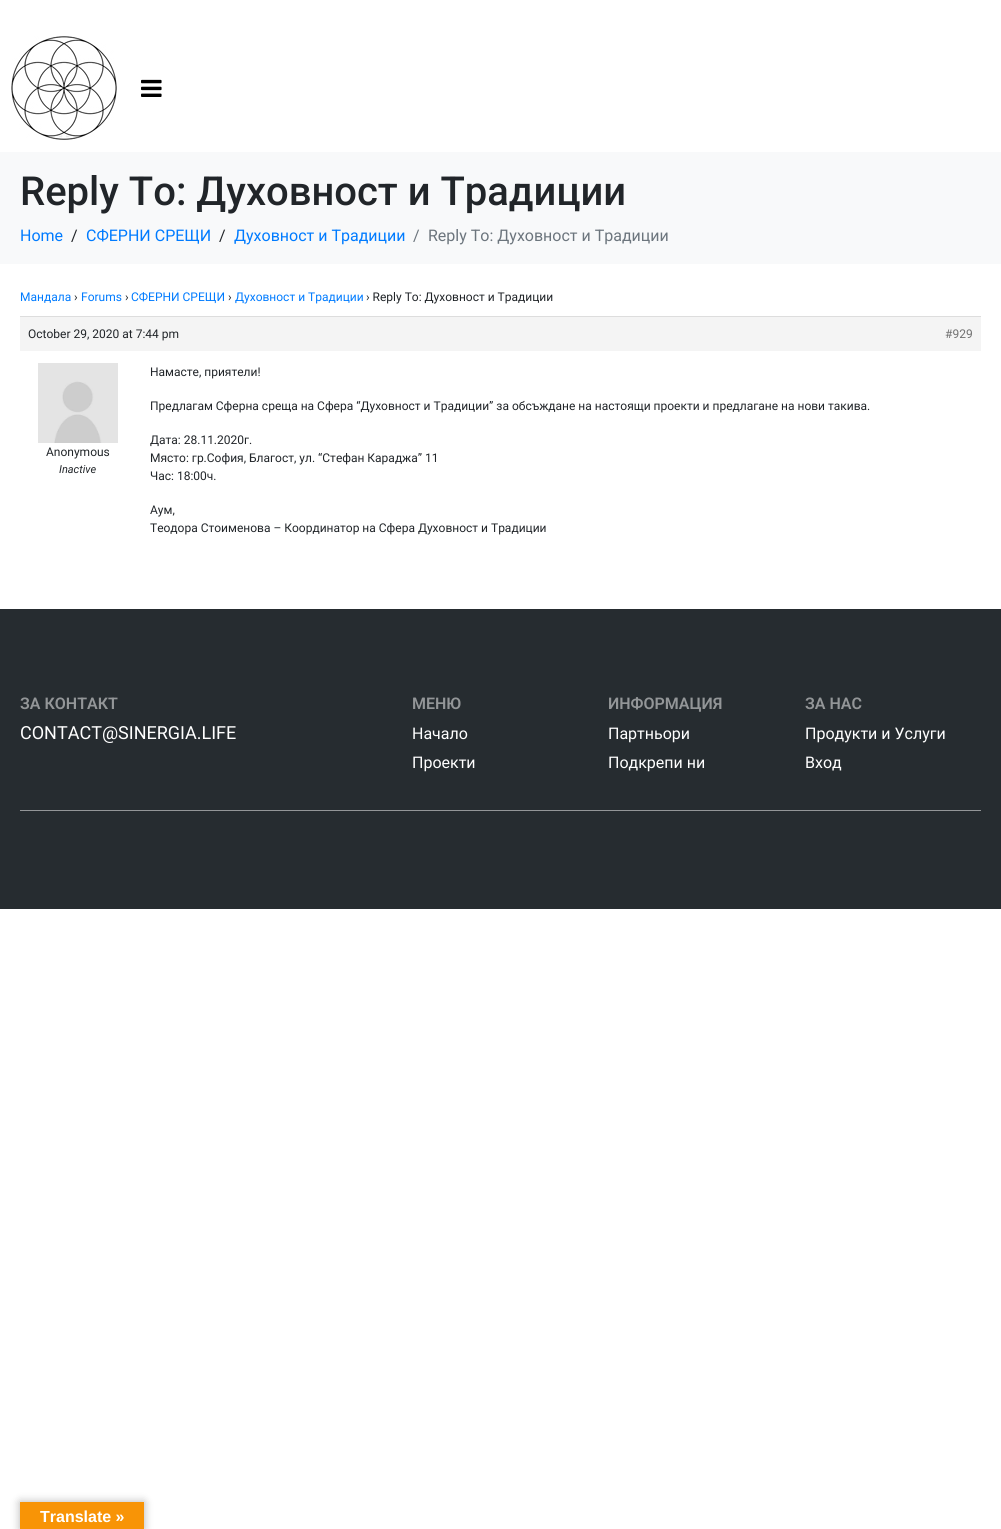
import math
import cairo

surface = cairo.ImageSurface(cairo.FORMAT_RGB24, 1001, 1529)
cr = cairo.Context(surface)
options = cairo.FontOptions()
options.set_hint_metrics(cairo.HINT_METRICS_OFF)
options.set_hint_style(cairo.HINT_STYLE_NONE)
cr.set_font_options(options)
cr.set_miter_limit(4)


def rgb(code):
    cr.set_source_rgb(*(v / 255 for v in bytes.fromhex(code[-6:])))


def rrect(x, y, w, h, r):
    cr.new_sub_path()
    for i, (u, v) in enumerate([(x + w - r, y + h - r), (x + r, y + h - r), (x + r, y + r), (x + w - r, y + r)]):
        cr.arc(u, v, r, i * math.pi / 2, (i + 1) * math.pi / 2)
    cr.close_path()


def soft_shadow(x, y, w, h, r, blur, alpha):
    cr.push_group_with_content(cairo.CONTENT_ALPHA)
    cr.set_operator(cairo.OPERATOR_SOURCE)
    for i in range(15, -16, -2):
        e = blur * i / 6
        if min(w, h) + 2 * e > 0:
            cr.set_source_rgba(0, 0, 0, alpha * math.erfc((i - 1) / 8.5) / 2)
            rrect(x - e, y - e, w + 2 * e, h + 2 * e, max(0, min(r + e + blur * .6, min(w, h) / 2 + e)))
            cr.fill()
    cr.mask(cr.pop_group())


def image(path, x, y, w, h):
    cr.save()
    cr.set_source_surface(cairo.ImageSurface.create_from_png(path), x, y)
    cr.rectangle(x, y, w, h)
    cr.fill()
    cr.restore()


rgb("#ffffff")
cr.paint()
image("img/1.png", 11, 36, 106, 104)
image("img/2.png", 141, 79, 21, 18)
for x, y, w, h, color in [
    (0, 152, 1001, 112, "#f8f9fa"),
    (20, 317, 961, 34, "#f4f4f4"),
    (20, 316, 961, 1, "#dddddd"),
]:
    rgb(color)
    cr.rectangle(x, y, w, h)
    cr.fill()
image("img/3.png", 38, 363, 80, 80)
rgb("#262c30")
cr.rectangle(0, 609, 1001, 300)
cr.fill()
rgb("#939698")
cr.rectangle(20, 810, 961, 1)
cr.fill()
rgb("#000000")
soft_shadow(20, 1502, 124, 27, 0, 4.5, 0.3)
rgb("#f89406")
cr.rectangle(20, 1502, 124, 27)
cr.fill()
cr.select_font_face("Roboto Medium")
cr.set_font_size(40)
rgb("#212529")
cr.move_to(20, 205)
cr.show_text("Reply To: Духовност и Традиции")
cr.select_font_face("Roboto")
cr.set_font_size(16)
rgb("#007bff")
cr.move_to(20, 241)
cr.show_text("Home")
rgb("#212529")
cr.move_to(71, 241)
cr.show_text("/")
rgb("#007bff")
cr.move_to(86, 241)
cr.show_text("СФЕРНИ СРЕЩИ")
rgb("#212529")
cr.move_to(219, 241)
cr.show_text("/")
rgb("#007bff")
cr.move_to(234, 241)
cr.show_text("Духовност и Традиции")
rgb("#6c757d")
cr.move_to(413, 241)
cr.show_text("/")
cr.move_to(428, 241)
cr.show_text("Reply To: Духовност и Традиции")
cr.set_font_size(12)
rgb("#007bff")
cr.move_to(20, 301)
cr.show_text("Мандала")
rgb("#212529")
cr.move_to(74, 301)
cr.show_text("›")
rgb("#007bff")
cr.move_to(81, 301)
cr.show_text("Forums")
rgb("#212529")
cr.move_to(125, 301)
cr.show_text("›")
rgb("#007bff")
cr.move_to(131, 301)
cr.show_text("СФЕРНИ СРЕЩИ")
rgb("#212529")
cr.move_to(228, 301)
cr.show_text("›")
rgb("#007bff")
cr.move_to(235, 301)
cr.show_text("Духовност и Традиции")
rgb("#212529")
cr.move_to(366, 301)
cr.show_text("› Reply To: Духовност и Традиции")
cr.move_to(28, 338)
cr.show_text("October 29, 2020 at 7:44 pm")
rgb("#707070")
cr.move_to(945, 338)
cr.show_text("#929")
rgb("#212529")
cr.move_to(46, 456)
cr.show_text("Anonymous")
cr.select_font_face("Roboto", cairo.FONT_SLANT_ITALIC)
cr.set_font_size(11)
cr.move_to(59, 473)
cr.show_text("Inactive")
cr.select_font_face("Roboto")
cr.set_font_size(12)
for x, y, s in [
    (150, 376, "Намасте, приятели!"),
    (150, 410, "Предлагам Сферна среща на Сфера “Духовност и Традиции” за обсъждане на настоящи проекти и предлагане на нови такива."),
    (150, 444, "Дата: 28.11.2020г."),
    (150, 462, "Място: гр.София, Благост, ул. “Стефан Караджа” 11"),
    (150, 480, "Час: 18:00ч."),
    (150, 514, "Аум,"),
    (150, 532, "Теодора Стоименова – Координатор на Сфера Духовност и Традиции"),
]:
    cr.move_to(x, y)
    cr.show_text(s)
cr.select_font_face("Roboto SemiBold")
cr.set_font_size(16)
rgb("#939698")
cr.move_to(20, 709)
cr.show_text("ЗА КОНТАКТ")
cr.select_font_face("Roboto")
cr.set_font_size(18)
rgb("#ffffff")
cr.move_to(20, 739)
cr.show_text("CONTACT@SINERGIA.LIFE")
cr.select_font_face("Roboto SemiBold")
cr.set_font_size(16)
rgb("#939698")
cr.move_to(412, 709)
cr.show_text("МЕНЮ")
cr.select_font_face("Roboto")
rgb("#ffffff")
cr.move_to(412, 739)
cr.show_text("Начало")
cr.move_to(412, 768)
cr.show_text("Проекти")
cr.select_font_face("Roboto SemiBold")
rgb("#939698")
cr.move_to(608, 709)
cr.show_text("ИНФОРМАЦИЯ")
cr.select_font_face("Roboto")
rgb("#ffffff")
cr.move_to(608, 739)
cr.show_text("Партньори")
cr.move_to(608, 768)
cr.show_text("Подкрепи ни")
cr.select_font_face("Roboto SemiBold")
rgb("#939698")
cr.move_to(805, 709)
cr.show_text("ЗА НАС")
cr.select_font_face("Roboto")
rgb("#ffffff")
cr.move_to(805, 739)
cr.show_text("Продукти и Услуги")
cr.move_to(805, 768)
cr.show_text("Вход")
cr.select_font_face("Liberation Sans", cairo.FONT_SLANT_NORMAL, cairo.FONT_WEIGHT_BOLD)
cr.move_to(40, 1522)
cr.show_text("Translate »")
surface.write_to_png("page.png")
